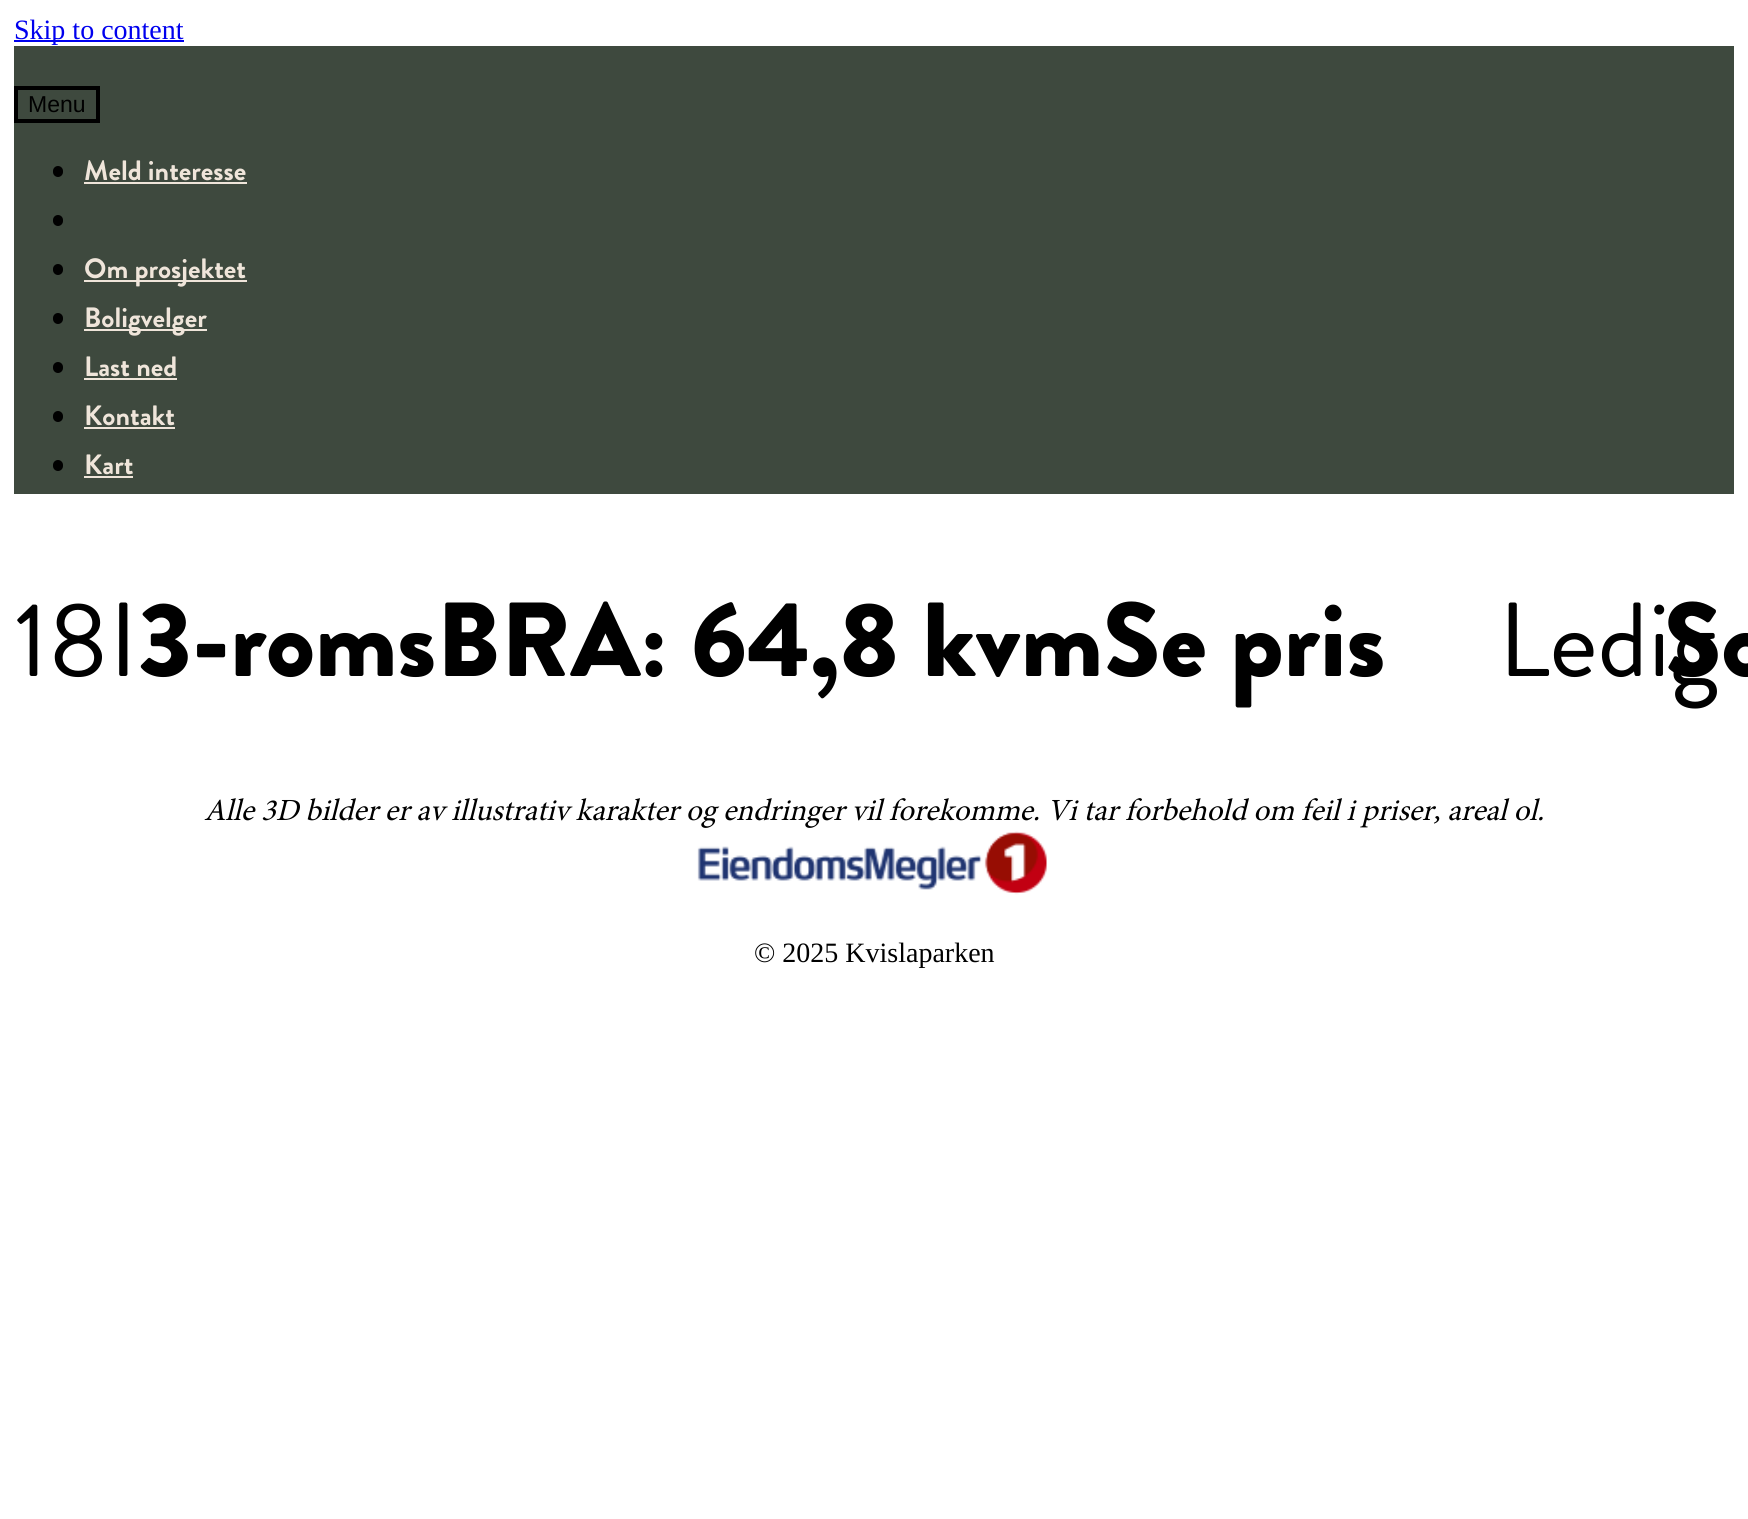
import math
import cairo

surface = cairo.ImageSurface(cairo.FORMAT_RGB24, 1748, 1519)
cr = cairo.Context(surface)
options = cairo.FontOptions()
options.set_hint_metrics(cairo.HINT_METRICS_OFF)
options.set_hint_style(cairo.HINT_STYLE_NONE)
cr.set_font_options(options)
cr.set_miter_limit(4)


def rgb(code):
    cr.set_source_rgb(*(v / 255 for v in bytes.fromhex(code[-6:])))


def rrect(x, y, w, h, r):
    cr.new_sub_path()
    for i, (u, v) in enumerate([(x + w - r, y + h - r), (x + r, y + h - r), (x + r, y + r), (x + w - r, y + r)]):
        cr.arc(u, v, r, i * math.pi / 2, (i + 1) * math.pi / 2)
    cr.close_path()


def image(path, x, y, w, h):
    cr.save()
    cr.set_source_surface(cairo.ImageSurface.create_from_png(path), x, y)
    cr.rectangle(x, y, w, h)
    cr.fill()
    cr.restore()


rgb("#ffffff")
cr.paint()
rgb("#0000ee")
cr.rectangle(14, 40, 170, 2)
cr.fill()
rgb("#3e493e")
cr.rectangle(14, 46, 1720, 448)
cr.fill()
cr.rectangle(16, 88, 82, 33)
rgb("#000000")
cr.set_line_width(4)
cr.stroke()
rrect(53, 166, 10, 11, 5)
cr.fill()
rgb("#efe5da")
cr.rectangle(84, 182, 163, 2)
cr.fill()
rgb("#000000")
rrect(53, 215, 10, 11, 5)
cr.fill()
rrect(53, 264, 10, 11, 5)
cr.fill()
rgb("#efe5da")
cr.rectangle(84, 280, 163, 2)
cr.fill()
rgb("#000000")
rrect(53, 313, 10, 11, 5)
cr.fill()
rgb("#efe5da")
cr.rectangle(84, 329, 123, 2)
cr.fill()
rgb("#000000")
rrect(53, 362, 10, 11, 5)
cr.fill()
rgb("#efe5da")
cr.rectangle(84, 378, 93, 2)
cr.fill()
rgb("#000000")
rrect(53, 411, 10, 11, 5)
cr.fill()
rgb("#efe5da")
cr.rectangle(84, 427, 91, 2)
cr.fill()
rgb("#000000")
rrect(53, 460, 10, 11, 5)
cr.fill()
rgb("#efe5da")
cr.rectangle(84, 476, 49, 2)
cr.fill()
image("img/1.png", 697, 831, 350, 64)
cr.select_font_face("Liberation Serif")
cr.set_font_size(28)
rgb("#0000ee")
cr.move_to(14, 39)
cr.show_text("Skip to content")
cr.select_font_face("Liberation Sans")
cr.set_font_size(23)
rgb("#000000")
cr.move_to(28, 112)
cr.show_text("Menu")
cr.select_font_face("Brandon Grotesque", cairo.FONT_SLANT_NORMAL, cairo.FONT_WEIGHT_BOLD)
cr.set_font_size(28)
rgb("#efe5da")
for x, y, s in [
    (84, 180, "Meld interesse"),
    (84, 278, "Om prosjektet"),
    (84, 327, "Boligvelger"),
    (84, 376, "Last ned"),
    (84, 425, "Kontakt"),
    (84, 474, "Kart"),
]:
    cr.move_to(x, y)
    cr.show_text(s)
cr.select_font_face("Brandon Grotesque")
cr.set_font_size(105)
rgb("#000000")
cr.move_to(14, 676)
cr.show_text("18I")
cr.select_font_face("Brandon Grotesque Black")
cr.move_to(138, 676)
cr.show_text("3-romsBRA: 64,8 kvmSe pris")
cr.move_to(1664, 676)
cr.show_text("So")
cr.select_font_face("Brandon Grotesque")
cr.move_to(1498, 676)
cr.show_text("Ledig")
cr.select_font_face("Minion", cairo.FONT_SLANT_ITALIC)
cr.set_font_size(30.8)
cr.move_to(204, 820)
cr.show_text("Alle 3D bilder er av illustrativ karakter og endringer vil forekomme. Vi tar forbehold om feil i priser, areal ol.")
cr.select_font_face("Liberation Serif")
cr.set_font_size(28)
cr.move_to(754, 962)
cr.show_text("© 2025 Kvislaparken")
surface.write_to_png("page.png")
